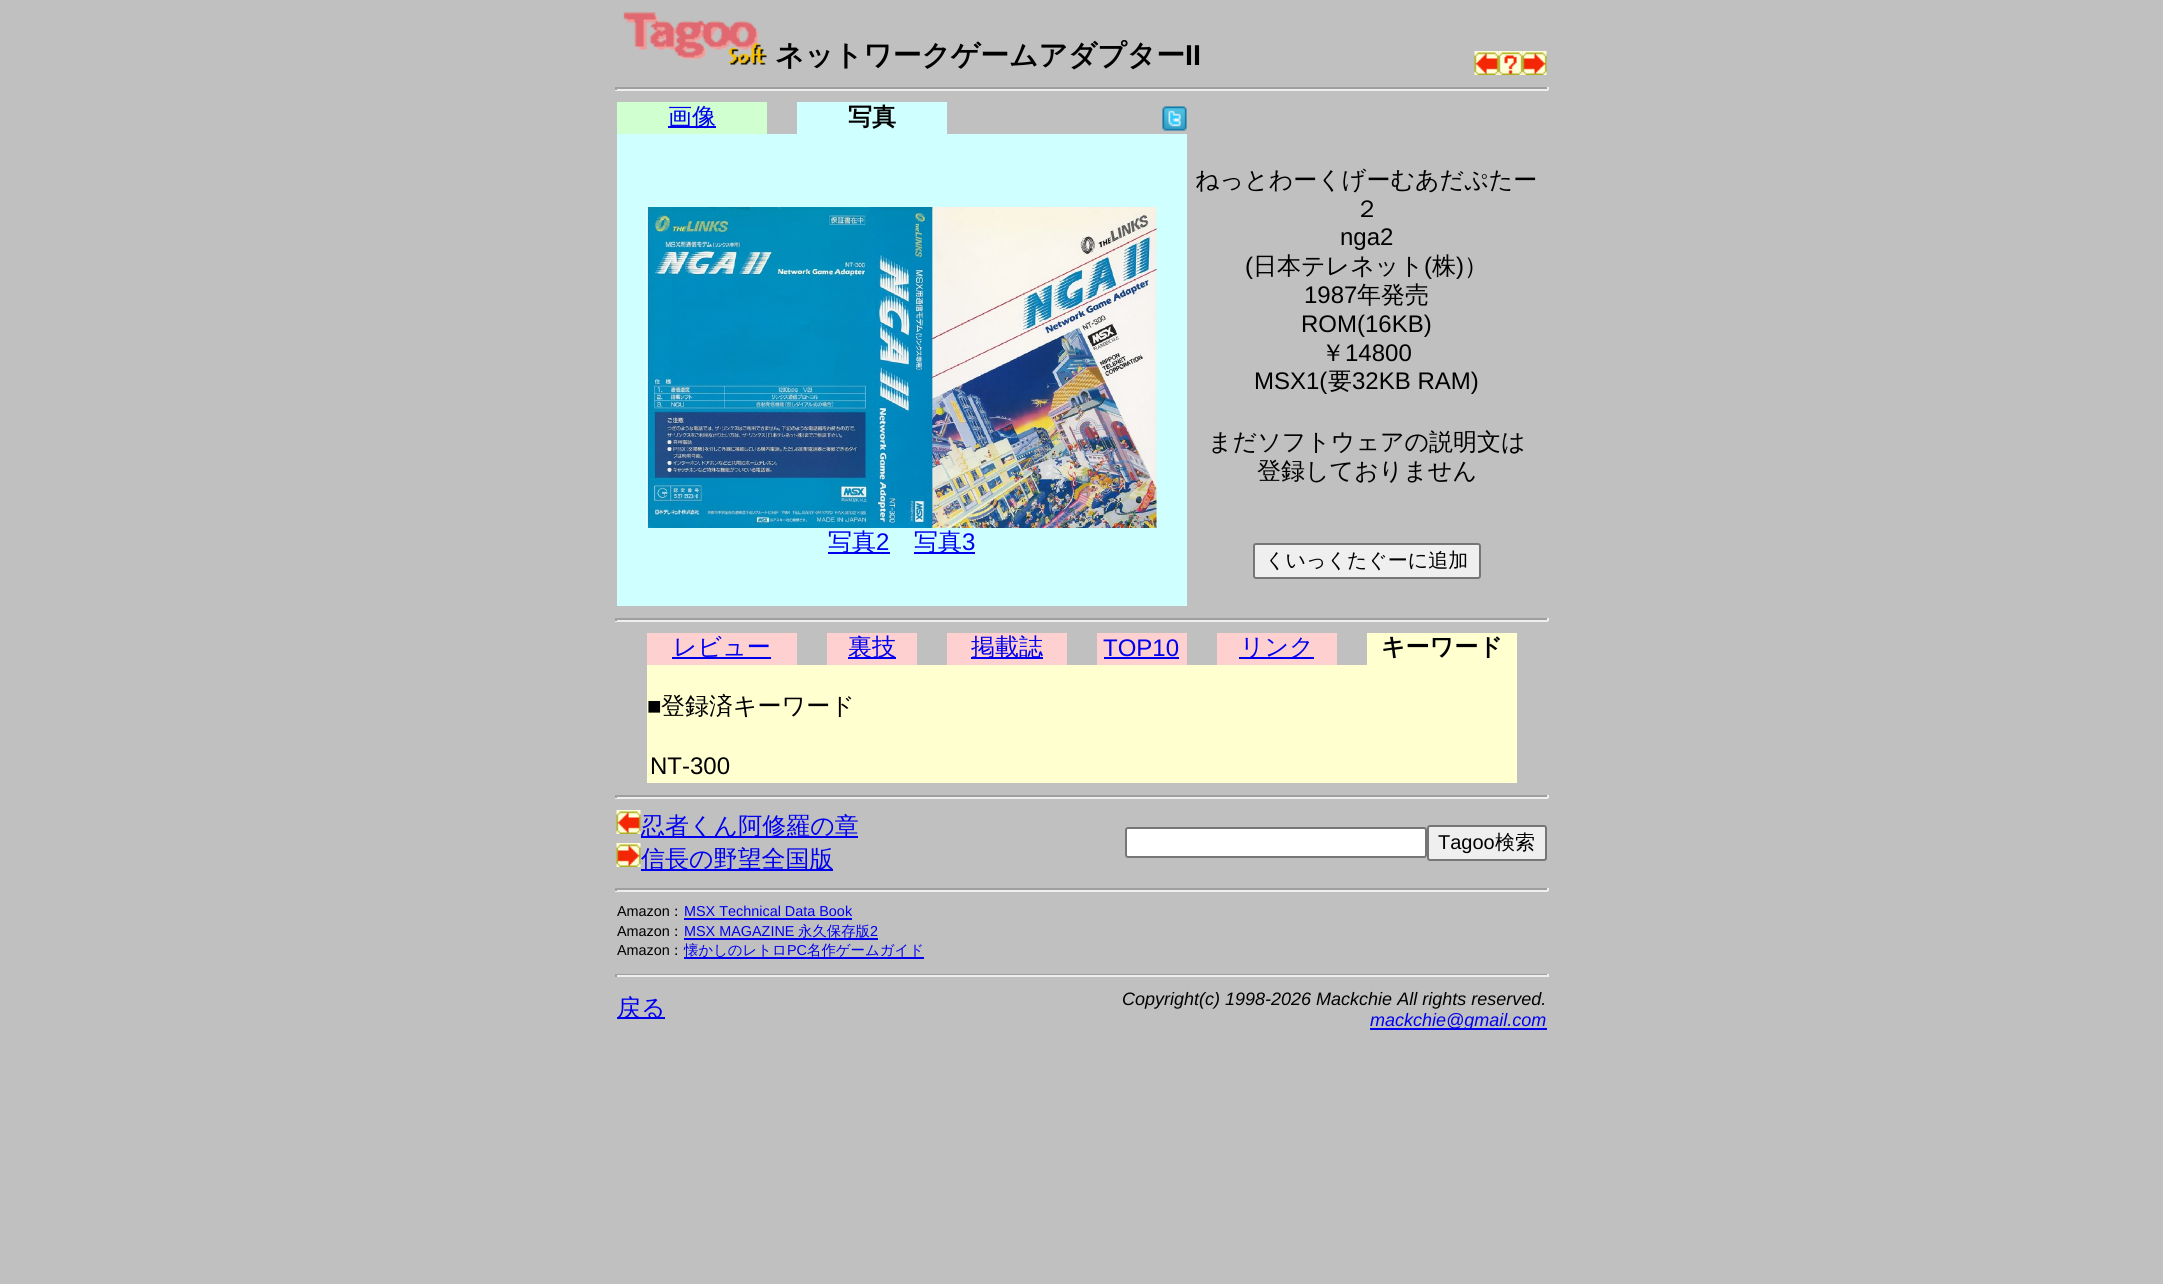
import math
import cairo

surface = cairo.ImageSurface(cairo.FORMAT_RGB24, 2163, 1284)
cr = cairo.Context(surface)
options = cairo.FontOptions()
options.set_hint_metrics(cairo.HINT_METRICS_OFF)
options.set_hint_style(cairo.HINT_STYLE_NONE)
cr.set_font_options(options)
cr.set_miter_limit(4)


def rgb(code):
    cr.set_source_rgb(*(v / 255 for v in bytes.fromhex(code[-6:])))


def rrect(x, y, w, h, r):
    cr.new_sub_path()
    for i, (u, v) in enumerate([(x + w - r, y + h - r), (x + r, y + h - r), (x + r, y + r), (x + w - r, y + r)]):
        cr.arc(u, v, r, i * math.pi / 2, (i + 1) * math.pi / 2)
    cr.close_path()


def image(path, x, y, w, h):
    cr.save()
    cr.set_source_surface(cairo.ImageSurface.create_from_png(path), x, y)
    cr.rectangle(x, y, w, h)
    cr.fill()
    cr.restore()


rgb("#c0c0c0")
cr.paint()
image("img/1.png", 623, 12, 144, 53)
image("img/2.png", 1474, 51, 25, 24)
image("img/3.png", 1498, 51, 25, 24)
image("img/4.png", 1522, 51, 25, 24)
for x, y, w, h, color in [
    (615, 87, 933, 2, "#9f9f9f"),
    (1547, 87, 2, 3, "#eeeeee"),
    (615, 89, 933, 2, "#eeeeee"),
    (615, 87, 2, 3, "#9f9f9f"),
    (617, 102, 150, 32, "#d0ffd0"),
    (668, 126, 48, 2, "#0000ee"),
    (797, 102, 150, 32, "#d0ffff"),
]:
    rgb(color)
    cr.rectangle(x, y, w, h)
    cr.fill()
image("img/5.png", 1162, 106, 25, 25)
cr.rectangle(617, 134, 570, 472)
cr.fill()
image("img/6.png", 646, 207, 511, 321)
rgb("#0000ee")
cr.rectangle(828, 552, 62, 2)
cr.fill()
cr.rectangle(914, 552, 61, 2)
cr.fill()
rgb("#efefef")
rrect(1254, 544, 226, 34, 2)
cr.fill_preserve()
rgb("#767676")
cr.stroke()
for x, y, w, h, color in [
    (615, 618, 933, 2, "#9f9f9f"),
    (1547, 618, 2, 3, "#eeeeee"),
    (615, 620, 933, 2, "#eeeeee"),
    (615, 618, 2, 3, "#9f9f9f"),
    (647, 633, 150, 32, "#ffd0d0"),
    (672, 657, 99, 2, "#0000ee"),
    (827, 633, 90, 32, "#ffd0d0"),
    (848, 657, 48, 2, "#0000ee"),
    (947, 633, 120, 32, "#ffd0d0"),
    (971, 657, 72, 2, "#0000ee"),
    (1097, 633, 90, 32, "#ffd0d0"),
    (1104, 657, 75, 2, "#0000ee"),
    (1217, 633, 120, 32, "#ffd0d0"),
    (1239, 657, 75, 2, "#0000ee"),
    (1367, 633, 150, 32, "#ffffd0"),
    (647, 665, 870, 118, "#ffffd0"),
    (615, 795, 933, 2, "#9f9f9f"),
    (1547, 795, 2, 3, "#eeeeee"),
    (615, 797, 933, 2, "#eeeeee"),
    (615, 795, 2, 3, "#9f9f9f"),
]:
    rgb(color)
    cr.rectangle(x, y, w, h)
    cr.fill()
image("img/2.png", 616, 810, 25, 24)
rgb("#0000ee")
cr.rectangle(641, 836, 217, 2)
cr.fill()
image("img/7.png", 616, 843, 25, 24)
cr.rectangle(641, 869, 192, 2)
cr.fill()
rgb("#ffffff")
rrect(1126, 828, 300, 29, 2)
cr.fill_preserve()
rgb("#767676")
cr.stroke()
rgb("#efefef")
rrect(1428, 826, 118, 34, 2)
cr.fill_preserve()
rgb("#767676")
cr.stroke()
for x, y, w, h, color in [
    (615, 888, 933, 2, "#9f9f9f"),
    (1547, 888, 2, 3, "#eeeeee"),
    (615, 890, 933, 2, "#eeeeee"),
    (615, 888, 2, 3, "#9f9f9f"),
    (684, 918, 168, 2, "#0000ee"),
    (684, 938, 194, 2, "#0000ee"),
    (684, 957, 240, 2, "#0000ee"),
    (615, 974, 933, 1, "#9f9f9f"),
    (1547, 974, 2, 3, "#eeeeee"),
    (615, 975, 933, 2, "#eeeeee"),
    (615, 974, 2, 3, "#9f9f9f"),
    (617, 1017, 48, 2, "#0000ee"),
    (1370, 1028, 177, 2, "#0000ee"),
]:
    rgb(color)
    cr.rectangle(x, y, w, h)
    cr.fill()
cr.select_font_face("WenQuanYi Zen Hei", cairo.FONT_SLANT_NORMAL, cairo.FONT_WEIGHT_BOLD)
cr.set_font_size(28.75)
rgb("#000000")
cr.move_to(775, 65)
cr.show_text("ネットワークゲームアダプター")
cr.select_font_face("Liberation Sans", cairo.FONT_SLANT_NORMAL, cairo.FONT_WEIGHT_BOLD)
cr.move_to(1185, 65)
cr.show_text("II")
cr.select_font_face("WenQuanYi Zen Hei Medium")
cr.set_font_size(24)
rgb("#0000ee")
cr.move_to(668, 125)
cr.show_text("画像")
cr.select_font_face("WenQuanYi Zen Hei", cairo.FONT_SLANT_NORMAL, cairo.FONT_WEIGHT_BOLD)
rgb("#000000")
cr.move_to(848, 125)
cr.show_text("写真")
cr.select_font_face("WenQuanYi Zen Hei Medium")
rgb("#0000ee")
cr.move_to(828, 550)
cr.show_text("写真")
cr.select_font_face("Liberation Sans")
cr.move_to(876, 550)
cr.show_text("2")
cr.select_font_face("WenQuanYi Zen Hei Medium")
cr.move_to(914, 550)
cr.show_text("写真")
cr.select_font_face("Liberation Sans")
cr.move_to(962, 550)
cr.show_text("3")
cr.select_font_face("WenQuanYi Zen Hei Medium")
rgb("#000000")
cr.move_to(1195, 188)
cr.show_text("ねっとわーくげーむあだぷたー")
cr.move_to(1355, 217)
cr.show_text("２")
cr.select_font_face("Liberation Sans")
cr.move_to(1340, 245)
cr.show_text("nga2")
cr.move_to(1245, 274)
cr.show_text("(")
cr.select_font_face("WenQuanYi Zen Hei Medium")
cr.move_to(1253, 274)
cr.show_text("日本テレネット")
cr.select_font_face("Liberation Sans")
cr.move_to(1424, 274)
cr.show_text("(")
cr.select_font_face("WenQuanYi Zen Hei Medium")
cr.move_to(1432, 274)
cr.show_text("株")
cr.select_font_face("Liberation Sans")
cr.move_to(1456, 274)
cr.show_text(")")
cr.select_font_face("WenQuanYi Zen Hei Medium")
cr.move_to(1464, 274)
cr.show_text("）")
cr.select_font_face("Liberation Sans")
cr.move_to(1304, 303)
cr.show_text("1987")
cr.select_font_face("WenQuanYi Zen Hei Medium")
cr.move_to(1357, 303)
cr.show_text("年発売")
cr.select_font_face("Liberation Sans")
cr.move_to(1301, 332)
cr.show_text("ROM(16KB)")
cr.select_font_face("WenQuanYi Zen Hei Medium")
cr.move_to(1321, 361)
cr.show_text("￥")
cr.select_font_face("Liberation Sans")
cr.move_to(1345, 361)
cr.show_text("14800")
cr.move_to(1254, 389)
cr.show_text("MSX1(")
cr.select_font_face("WenQuanYi Zen Hei Medium")
cr.move_to(1328, 389)
cr.show_text("要")
cr.select_font_face("Liberation Sans")
cr.move_to(1352, 389)
cr.show_text("32KB RAM)")
cr.select_font_face("WenQuanYi Zen Hei Medium")
cr.move_to(1208, 450)
cr.show_text("まだソフトウェアの説明文は")
cr.move_to(1257, 479)
cr.show_text("登録しておりません")
cr.set_font_size(20)
cr.move_to(1265, 567)
cr.show_text("くいっくたぐーに追加")
cr.set_font_size(24)
rgb("#0000ee")
for x, y, s in [
    (673, 655, "レビュー"),
    (848, 655, "裏技"),
    (971, 655, "掲載誌"),
]:
    cr.move_to(x, y)
    cr.show_text(s)
cr.select_font_face("Liberation Sans")
cr.move_to(1103, 656)
cr.show_text("TOP10")
cr.select_font_face("WenQuanYi Zen Hei Medium")
cr.move_to(1240, 655)
cr.show_text("リンク")
cr.select_font_face("WenQuanYi Zen Hei", cairo.FONT_SLANT_NORMAL, cairo.FONT_WEIGHT_BOLD)
rgb("#000000")
cr.move_to(1381, 655)
cr.show_text("キーワード")
cr.select_font_face("Liberation Sans")
cr.move_to(647, 714)
cr.show_text("■")
cr.select_font_face("WenQuanYi Zen Hei Medium")
cr.move_to(661, 714)
cr.show_text("登録済キーワード")
cr.select_font_face("Liberation Sans")
cr.move_to(650, 774)
cr.show_text("NT-300")
cr.select_font_face("WenQuanYi Zen Hei Medium")
rgb("#0000ee")
cr.move_to(641, 834)
cr.show_text("忍者くん阿修羅の章")
cr.move_to(641, 867)
cr.show_text("信長の野望全国版")
cr.select_font_face("Liberation Sans")
cr.set_font_size(20)
rgb("#000000")
cr.move_to(1438, 849)
cr.show_text("Tagoo")
cr.select_font_face("WenQuanYi Zen Hei Medium")
cr.move_to(1495, 849)
cr.show_text("検索")
cr.select_font_face("Liberation Sans")
cr.set_font_size(14.4)
cr.move_to(617, 916)
cr.show_text("Amazon")
cr.select_font_face("WenQuanYi Zen Hei Medium")
cr.move_to(669, 916)
cr.show_text("：")
cr.select_font_face("Liberation Sans")
rgb("#0000ee")
cr.move_to(684, 916)
cr.show_text("MSX Technical Data Book")
rgb("#000000")
cr.move_to(617, 936)
cr.show_text("Amazon")
cr.select_font_face("WenQuanYi Zen Hei Medium")
cr.move_to(669, 936)
cr.show_text("：")
cr.select_font_face("Liberation Sans")
rgb("#0000ee")
cr.move_to(684, 936)
cr.show_text("MSX MAGAZINE")
cr.select_font_face("WenQuanYi Zen Hei Medium")
cr.move_to(798, 936)
cr.show_text("永久保存版")
cr.select_font_face("Liberation Sans")
cr.move_to(870, 936)
cr.show_text("2")
rgb("#000000")
cr.move_to(617, 955)
cr.show_text("Amazon")
cr.select_font_face("WenQuanYi Zen Hei Medium")
cr.move_to(669, 955)
cr.show_text("：")
rgb("#0000ee")
cr.move_to(684, 955)
cr.show_text("懐かしのレトロ")
cr.select_font_face("Liberation Sans")
cr.move_to(787, 955)
cr.show_text("PC")
cr.select_font_face("WenQuanYi Zen Hei Medium")
cr.move_to(807, 955)
cr.show_text("名作ゲームガイド")
cr.set_font_size(24)
cr.move_to(617, 1016)
cr.show_text("戻る")
cr.select_font_face("Liberation Sans", cairo.FONT_SLANT_ITALIC)
cr.set_font_size(18)
rgb("#000000")
cr.move_to(1122, 1005)
cr.show_text("Copyright(c) 1998-2026 Mackchie All rights reserved.")
rgb("#0000ee")
cr.move_to(1370, 1026)
cr.show_text("mackchie@gmail.com")
surface.write_to_png("page.png")
